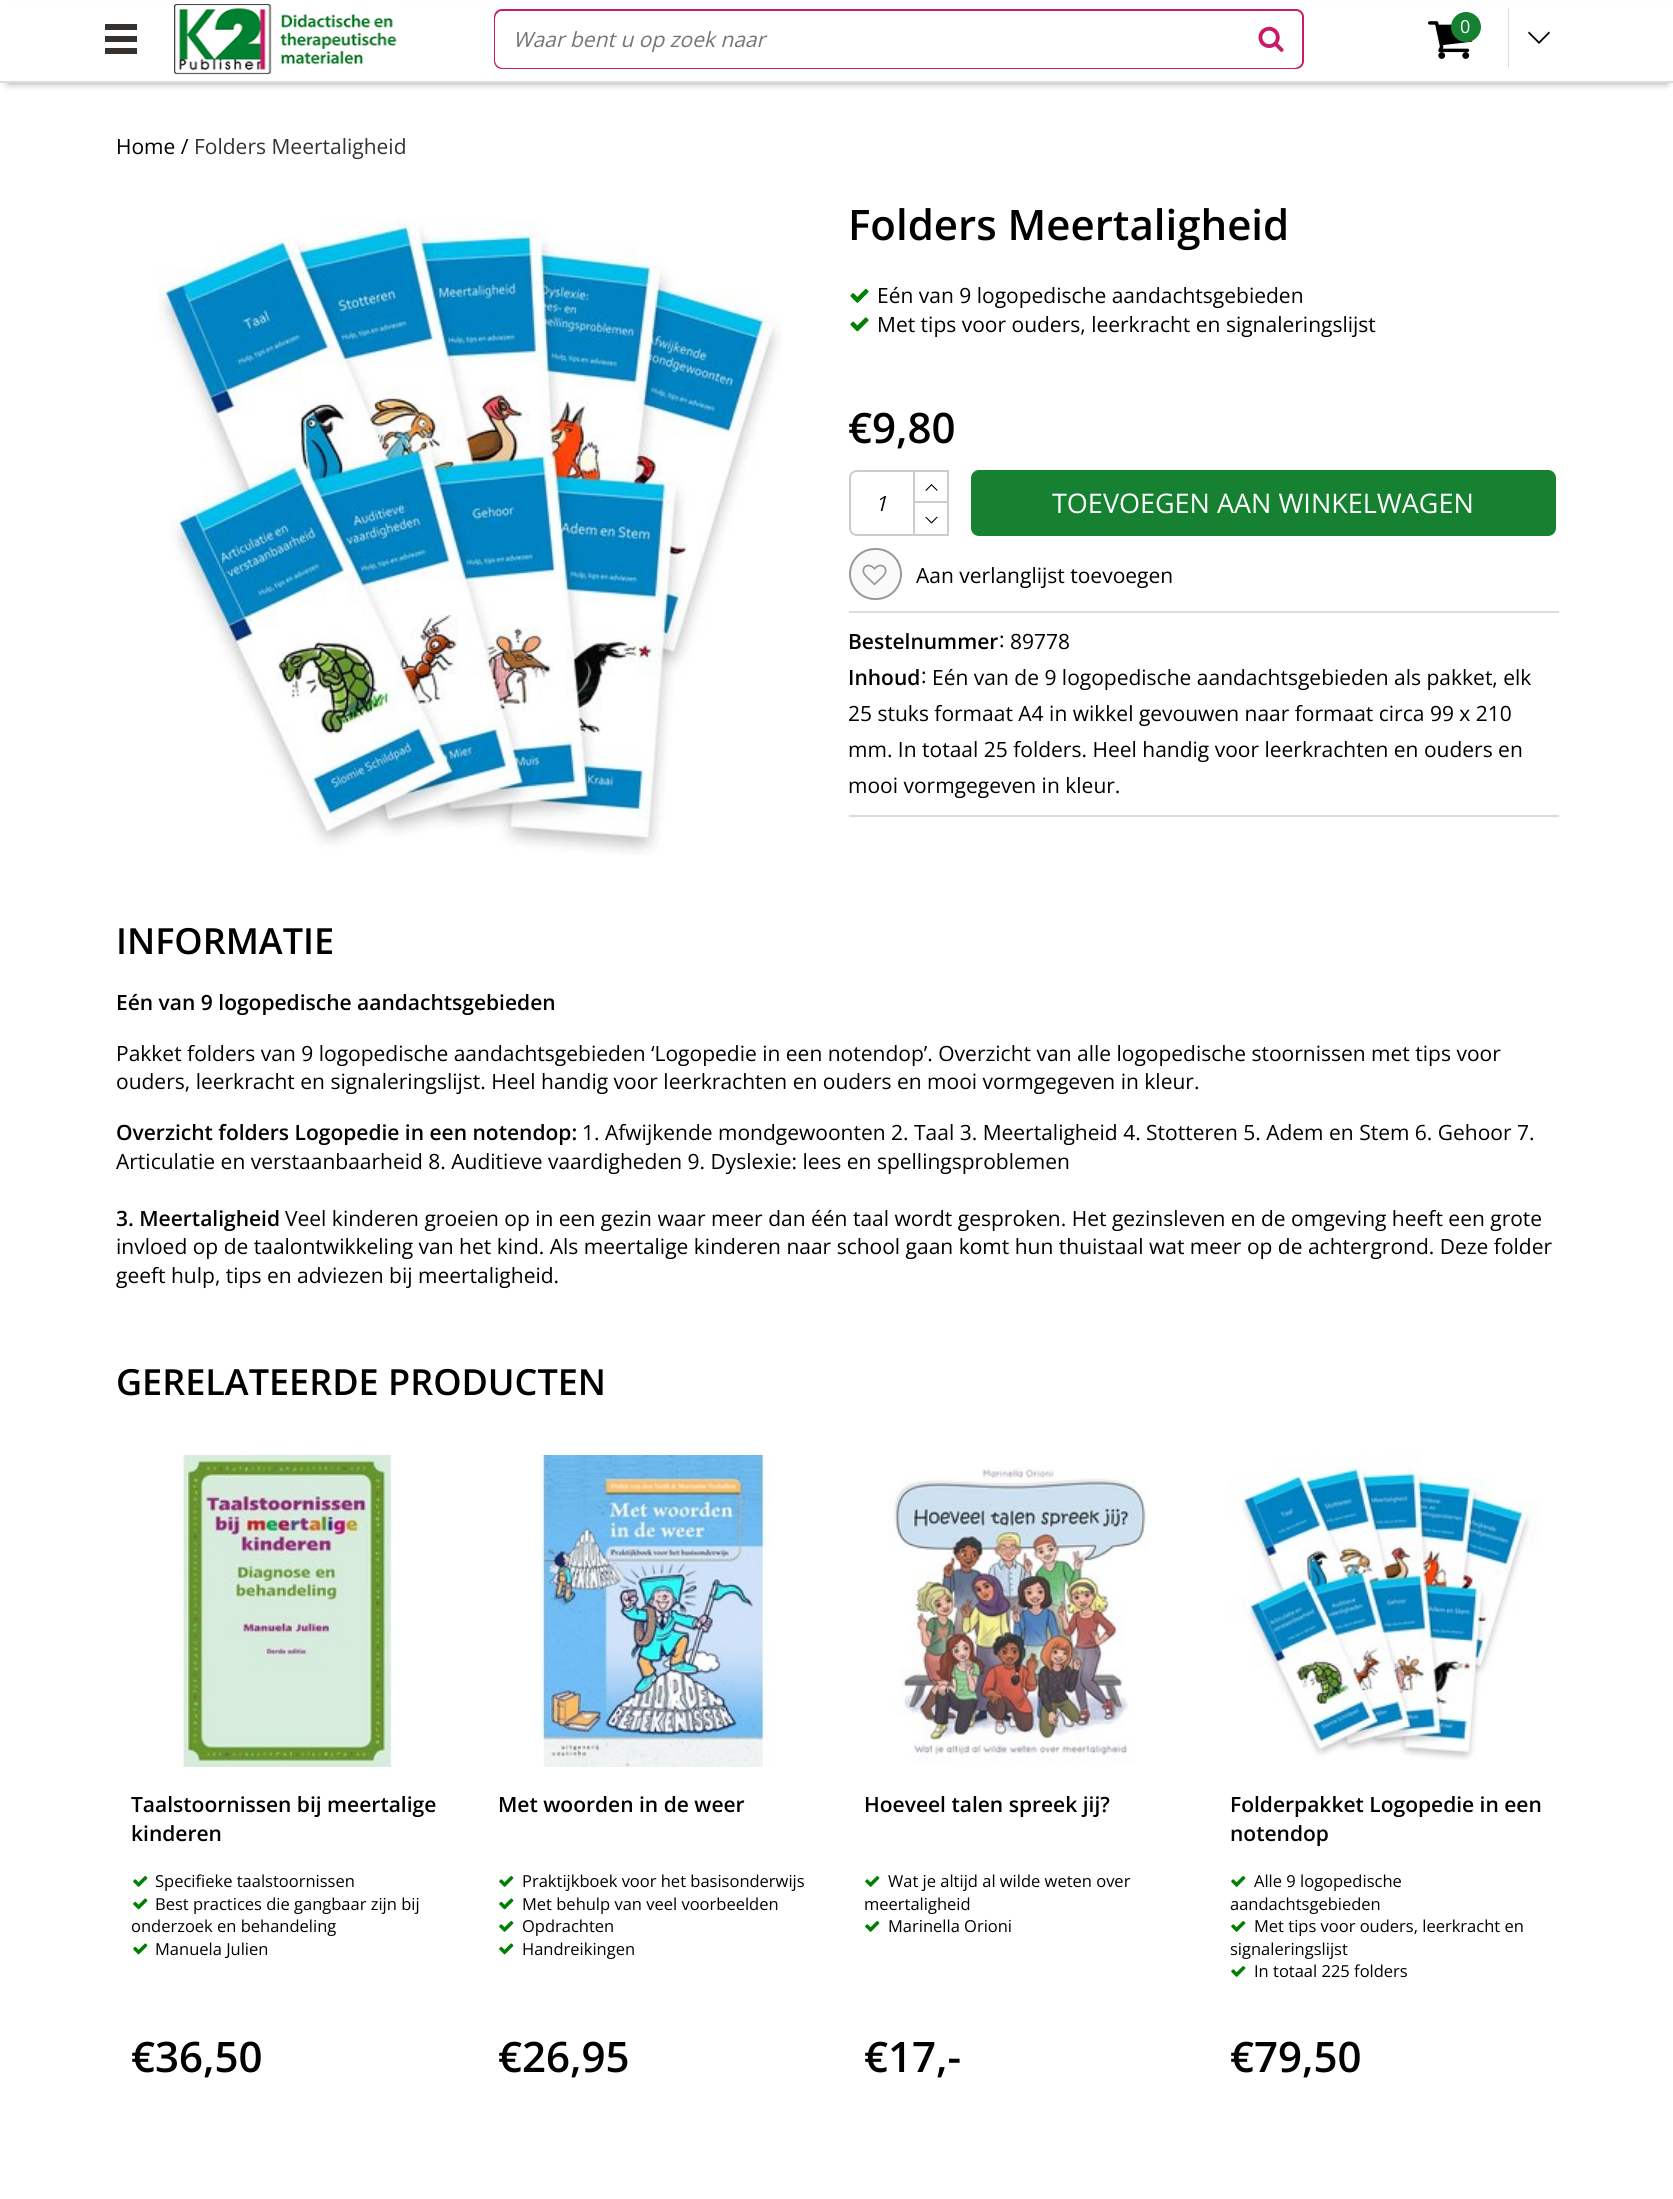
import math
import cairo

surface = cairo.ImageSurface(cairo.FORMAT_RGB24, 1673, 2199)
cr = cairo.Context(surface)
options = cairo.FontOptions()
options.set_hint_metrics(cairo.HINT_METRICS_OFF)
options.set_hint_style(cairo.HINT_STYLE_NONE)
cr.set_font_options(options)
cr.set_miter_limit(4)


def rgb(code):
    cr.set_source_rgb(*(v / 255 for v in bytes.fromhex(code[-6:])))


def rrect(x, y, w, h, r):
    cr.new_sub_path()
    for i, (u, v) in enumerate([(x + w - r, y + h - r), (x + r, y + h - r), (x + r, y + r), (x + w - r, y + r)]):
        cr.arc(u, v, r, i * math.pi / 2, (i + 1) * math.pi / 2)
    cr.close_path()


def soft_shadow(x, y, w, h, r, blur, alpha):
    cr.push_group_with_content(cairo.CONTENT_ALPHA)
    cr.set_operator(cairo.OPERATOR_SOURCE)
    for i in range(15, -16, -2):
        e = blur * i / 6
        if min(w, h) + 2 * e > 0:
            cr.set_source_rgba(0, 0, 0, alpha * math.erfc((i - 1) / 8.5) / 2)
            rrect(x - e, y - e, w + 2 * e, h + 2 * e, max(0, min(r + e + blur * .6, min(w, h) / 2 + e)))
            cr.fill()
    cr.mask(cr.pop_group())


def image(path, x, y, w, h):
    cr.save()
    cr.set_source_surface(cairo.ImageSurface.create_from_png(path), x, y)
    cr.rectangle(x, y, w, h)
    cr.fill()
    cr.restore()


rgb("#ffffff")
cr.paint()
rgb("#000000")
soft_shadow(8, 15, 1659, 68, 0, 4, 0.4)
for x, y, w, h, color in [
    (0, 7, 1673, 74, "#ffffff"),
    (0, 81, 1673, 2, "#dddddd"),
    (105, 24, 32, 6, "#34312f"),
    (105, 36, 32, 6, "#34312f"),
    (105, 48, 32, 6, "#34312f"),
]:
    rgb(color)
    cr.rectangle(x, y, w, h)
    cr.fill()
image("img/1.png", 174, 4, 223, 71)
image("img/2.png", 1428, 21, 45, 38)
rgb("#158131")
cr.arc(1466, 27, 15, 0, 2 * math.pi)
cr.fill()
rgb("#dddddd")
cr.new_path()
cr.move_to(1508, 69)
cr.line_to(1508, 8)
cr.line_to(1509, 8)
cr.line_to(1509, 68)
cr.close_path()
cr.fill()
rgb("#000000")
cr.new_path()
cr.move_to(1537.5, 42.5)
cr.line_to(1539, 44)
cr.line_to(1550, 33)
cr.line_to(1549, 31.5)
cr.line_to(1539, 41.5)
cr.line_to(1529, 31.5)
cr.line_to(1528, 33)
cr.close_path()
cr.fill()
rrect(495, 10, 808, 58, 7)
rgb("#c81a66")
cr.stroke()
rgb("#ffffff")
rrect(495, 11, 807, 57, 8)
cr.fill()
image("img/3.png", 1258, 26, 26, 26)
image("img/4.png", 157, 218, 625, 637)
image("img/5.png", 850, 288, 19, 15)
image("img/6.png", 850, 317, 19, 15)
cr.new_path()
cr.move_to(857, 471)
cr.line_to(914, 471)
cr.line_to(914, 535)
cr.line_to(857, 535)
cr.curve_to(853, 535, 850, 532, 850, 528)
cr.line_to(850, 478)
cr.curve_to(850, 474, 853, 471, 857, 471)
cr.close_path()
rgb("#cccccc")
cr.stroke()
for x, y, w, h, color in [
    (915, 470, 33, 2, "#cccccc"),
    (947, 470, 2, 66, "#cccccc"),
    (915, 501, 33, 2, "#cccccc"),
]:
    rgb(color)
    cr.rectangle(x, y, w, h)
    cr.fill()
image("img/7.png", 925, 484, 13, 7)
cr.rectangle(915, 534, 33, 2)
cr.fill()
image("img/8.png", 925, 516, 13, 8)
rgb("#158131")
rrect(971, 470, 585, 66, 8)
cr.fill()
rgb("#dddddd")
cr.rectangle(849, 611, 710, 2)
cr.fill()
rgb("#fafafa")
rrect(850, 549, 51, 50, 25)
cr.fill_preserve()
rgb("#999999")
cr.stroke()
image("img/9.png", 862, 564, 25, 22)
rgb("#dddddd")
cr.rectangle(849, 815, 710, 2)
cr.fill()
image("img/10.png", 179, 1455, 214, 312)
image("img/11.png", 133, 1876, 15, 11)
image("img/12.png", 133, 1898, 15, 12)
image("img/12.png", 133, 1943, 15, 12)
image("img/13.png", 538, 1455, 236, 312)
image("img/11.png", 499, 1876, 15, 11)
image("img/12.png", 499, 1898, 15, 12)
image("img/11.png", 499, 1921, 15, 11)
image("img/12.png", 499, 1943, 15, 12)
image("img/14.png", 888, 1467, 260, 296)
image("img/11.png", 865, 1876, 15, 11)
image("img/11.png", 865, 1921, 15, 11)
image("img/15.png", 1230, 1455, 309, 305)
image("img/11.png", 1231, 1876, 15, 11)
image("img/11.png", 1231, 1921, 15, 11)
image("img/11.png", 1231, 1966, 15, 11)
cr.select_font_face("Open Sans")
cr.set_font_size(18)
rgb("#ffffff")
cr.move_to(1460, 33)
cr.show_text("0")
cr.select_font_face("Open Sans", cairo.FONT_SLANT_ITALIC)
cr.set_font_size(21)
rgb("#757575")
cr.move_to(513, 47)
cr.show_text("Waar bent u op zoek naar")
cr.select_font_face("Open Sans")
rgb("#000000")
cr.move_to(116, 154)
cr.show_text("Home /")
rgb("#333333")
cr.move_to(194, 154)
cr.show_text("Folders Meertaligheid")
cr.select_font_face("Open Sans SemiBold")
cr.set_font_size(42)
rgb("#000000")
cr.move_to(848, 240)
cr.show_text("Folders Meertaligheid")
cr.select_font_face("Open Sans")
cr.set_font_size(21)
cr.move_to(877, 303)
cr.show_text("Eén van 9 logopedische aandachtsgebieden")
cr.move_to(877, 332)
cr.show_text("Met tips voor ouders, leerkracht en signaleringslijst")
cr.select_font_face("Open Sans SemiBold")
cr.set_font_size(42)
cr.move_to(848, 443)
cr.show_text("€9,80")
cr.select_font_face("Open Sans", cairo.FONT_SLANT_ITALIC)
cr.set_font_size(21)
cr.move_to(875, 511)
cr.show_text("1")
cr.select_font_face("Open Sans")
cr.set_font_size(27)
rgb("#ffffff")
cr.move_to(1052, 513)
cr.show_text("TOEVOEGEN AAN WINKELWAGEN")
cr.set_font_size(21)
rgb("#000000")
cr.move_to(916, 583)
cr.show_text("Aan verlanglijst toevoegen")
cr.select_font_face("Open Sans SemiBold")
cr.move_to(848, 649)
cr.show_text("Bestelnummer")
cr.select_font_face("Open Sans")
cr.move_to(999, 647)
cr.show_text(":")
cr.move_to(1010, 649)
cr.show_text("89778")
cr.select_font_face("Open Sans SemiBold")
cr.move_to(848, 685)
cr.show_text("Inhoud")
cr.select_font_face("Open Sans")
for x, y, s in [
    (921, 683, ":"),
    (932, 685, "Eén van de 9 logopedische aandachtsgebieden als pakket, elk"),
    (848, 721, "25 stuks formaat A4 in wikkel gevouwen naar formaat circa 99 x 210"),
    (848, 757, "mm. In totaal 25 folders. Heel handig voor leerkrachten en ouders en"),
    (848, 793, "mooi vormgegeven in kleur."),
]:
    cr.move_to(x, y)
    cr.show_text(s)
cr.select_font_face("Open Sans SemiBold")
cr.set_font_size(36)
cr.move_to(116, 954)
cr.show_text("INFORMATIE")
cr.set_font_size(21)
cr.move_to(116, 1010)
cr.show_text("Eén van 9 logopedische aandachtsgebieden")
cr.select_font_face("Open Sans")
cr.move_to(116, 1061)
cr.show_text("Pakket folders van 9 logopedische aandachtsgebieden ‘Logopedie in een notendop’. Overzicht van alle logopedische stoornissen met tips voor")
cr.move_to(116, 1089)
cr.show_text("ouders, leerkracht en signaleringslijst. Heel handig voor leerkrachten en ouders en mooi vormgegeven in kleur.")
cr.select_font_face("Open Sans SemiBold")
cr.move_to(116, 1140)
cr.show_text("Overzicht folders Logopedie in een notendop:")
cr.select_font_face("Open Sans")
cr.move_to(582, 1140)
cr.show_text("1. Afwijkende mondgewoonten 2. Taal 3. Meertaligheid 4. Stotteren 5. Adem en Stem 6. Gehoor 7.")
cr.move_to(116, 1169)
cr.show_text("Articulatie en verstaanbaarheid 8. Auditieve vaardigheden 9. Dyslexie: lees en spellingsproblemen")
cr.select_font_face("Open Sans SemiBold")
cr.move_to(116, 1226)
cr.show_text("3. Meertaligheid")
cr.select_font_face("Open Sans")
for x, y, s in [
    (285, 1226, "Veel kinderen groeien op in een gezin waar meer dan één taal wordt gesproken. Het gezinsleven en de omgeving heeft een grote"),
    (116, 1254, "invloed op de taalontwikkeling van het kind. Als meertalige kinderen naar school gaan komt hun thuistaal wat meer op de achtergrond. Deze folder"),
    (116, 1283, "geeft hulp, tips en adviezen bij meertaligheid."),
]:
    cr.move_to(x, y)
    cr.show_text(s)
cr.select_font_face("Open Sans SemiBold")
cr.set_font_size(36)
cr.move_to(116, 1395)
cr.show_text("GERELATEERDE PRODUCTEN")
cr.set_font_size(21)
cr.move_to(131, 1812)
cr.show_text("Taalstoornissen bij meertalige")
cr.move_to(131, 1841)
cr.show_text("kinderen")
cr.select_font_face("Open Sans")
cr.set_font_size(16.5)
for x, y, s in [
    (155, 1887, "Specifieke taalstoornissen"),
    (155, 1910, "Best practices die gangbaar zijn bij"),
    (131, 1932, "onderzoek en behandeling"),
    (155, 1955, "Manuela Julien"),
]:
    cr.move_to(x, y)
    cr.show_text(s)
cr.select_font_face("Open Sans SemiBold")
cr.set_font_size(42)
cr.move_to(131, 2072)
cr.show_text("€36,50")
cr.set_font_size(21)
cr.move_to(498, 1812)
cr.show_text("Met woorden in de weer")
cr.select_font_face("Open Sans")
cr.set_font_size(16.5)
for x, y, s in [
    (522, 1887, "Praktijkboek voor het basisonderwijs"),
    (522, 1910, "Met behulp van veel voorbeelden"),
    (522, 1932, "Opdrachten"),
    (522, 1955, "Handreikingen"),
]:
    cr.move_to(x, y)
    cr.show_text(s)
cr.select_font_face("Open Sans SemiBold")
cr.set_font_size(42)
cr.move_to(498, 2072)
cr.show_text("€26,95")
cr.set_font_size(21)
cr.move_to(864, 1812)
cr.show_text("Hoeveel talen spreek jij?")
cr.select_font_face("Open Sans")
cr.set_font_size(16.5)
for x, y, s in [
    (888, 1887, "Wat je altijd al wilde weten over"),
    (864, 1910, "meertaligheid"),
    (888, 1932, "Marinella Orioni"),
]:
    cr.move_to(x, y)
    cr.show_text(s)
cr.select_font_face("Open Sans SemiBold")
cr.set_font_size(42)
cr.move_to(864, 2072)
cr.show_text("€17,-")
cr.set_font_size(21)
cr.move_to(1230, 1812)
cr.show_text("Folderpakket Logopedie in een")
cr.move_to(1230, 1841)
cr.show_text("notendop")
cr.select_font_face("Open Sans")
cr.set_font_size(16.5)
for x, y, s in [
    (1254, 1887, "Alle 9 logopedische"),
    (1230, 1910, "aandachtsgebieden"),
    (1254, 1932, "Met tips voor ouders, leerkracht en"),
    (1230, 1955, "signaleringslijst"),
    (1254, 1977, "In totaal 225 folders"),
]:
    cr.move_to(x, y)
    cr.show_text(s)
cr.select_font_face("Open Sans SemiBold")
cr.set_font_size(42)
cr.move_to(1230, 2072)
cr.show_text("€79,50")
surface.write_to_png("page.png")
